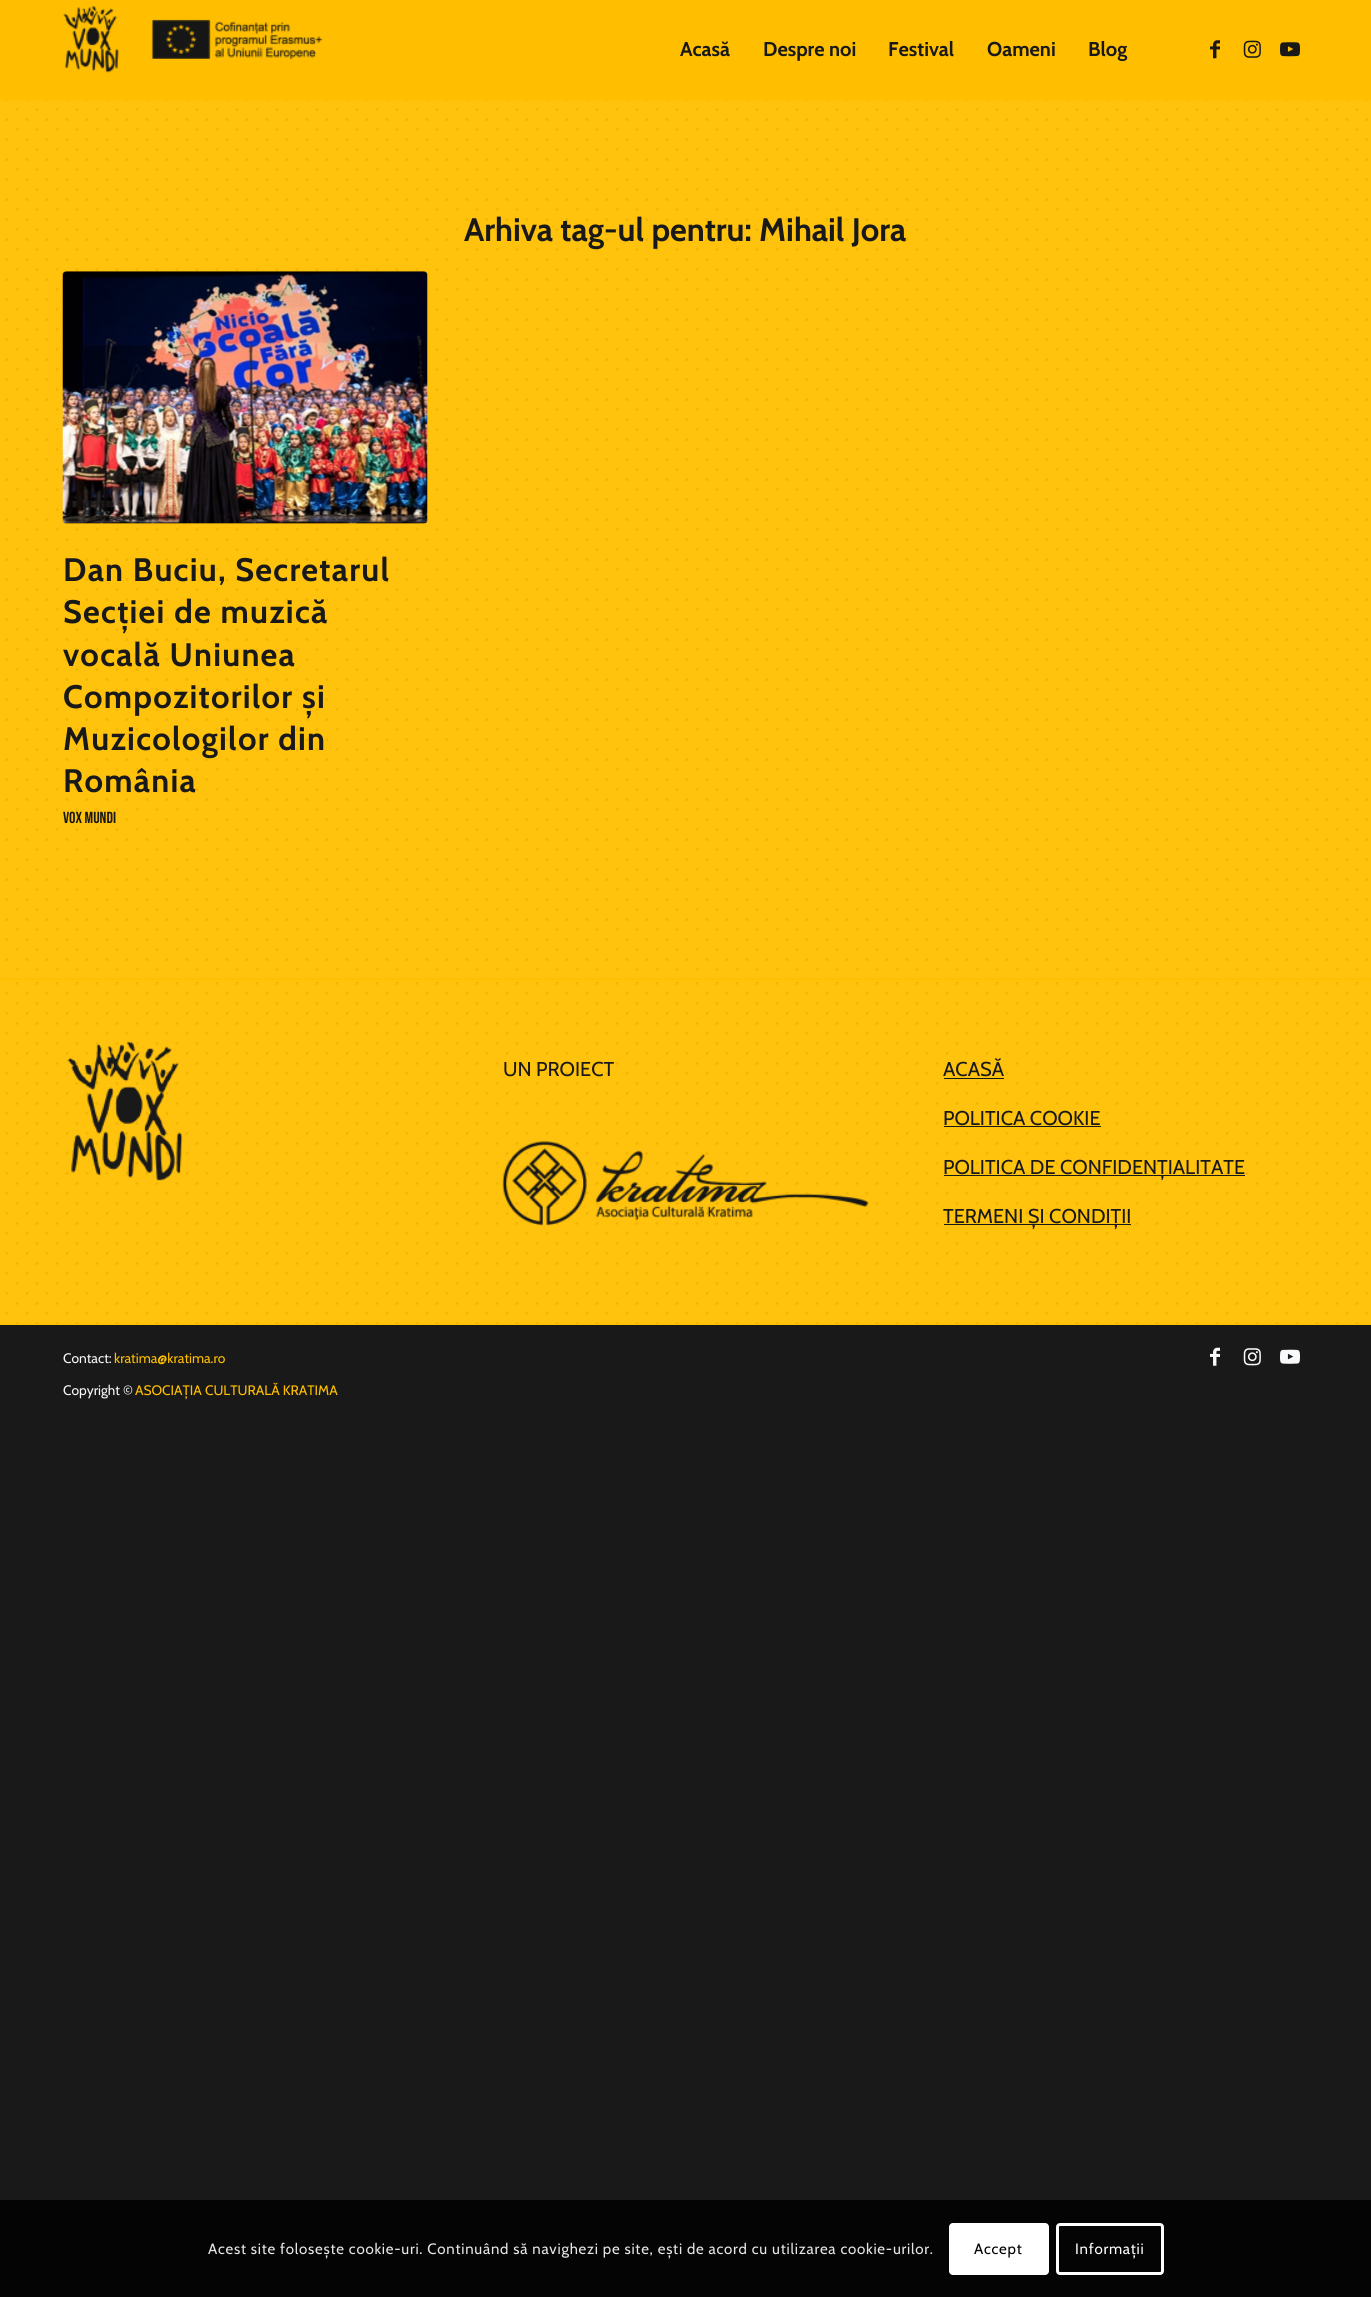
import math
import cairo

surface = cairo.ImageSurface(cairo.FORMAT_RGB24, 1371, 2297)
cr = cairo.Context(surface)
options = cairo.FontOptions()
options.set_hint_metrics(cairo.HINT_METRICS_OFF)
options.set_hint_style(cairo.HINT_STYLE_NONE)
cr.set_font_options(options)
cr.set_miter_limit(4)


def rgb(code):
    cr.set_source_rgb(*(v / 255 for v in bytes.fromhex(code[-6:])))


def tracked(x, y, s, letter, word):
    cr.move_to(x, y)
    for ch in s:
        cr.show_text(ch)
        cr.rel_move_to(letter + word * (ch == ' '), 0)


def rrect(x, y, w, h, r):
    cr.new_sub_path()
    for i, (u, v) in enumerate([(x + w - r, y + h - r), (x + r, y + h - r), (x + r, y + r), (x + w - r, y + r)]):
        cr.arc(u, v, r, i * math.pi / 2, (i + 1) * math.pi / 2)
    cr.close_path()


def image(path, x, y, w, h):
    cr.save()
    cr.set_source_surface(cairo.ImageSurface.create_from_png(path), x, y)
    cr.rectangle(x, y, w, h)
    cr.fill()
    cr.restore()


rgb("#191919")
cr.paint()
rgb("#ffbf00")
cr.rectangle(0, 0, 1371, 1325)
cr.fill()
image("img/1.png", 63, 6, 260, 67)
image("img/2.png", 1210, 40, 10, 19)
image("img/3.png", 1243, 40, 18, 18)
image("img/4.png", 1280, 42, 20, 15)
image("img/5.png", 0, 100, 1371, 879)
rrect(63, 271, 365, 253, 4)
cr.fill()
image("img/6.png", 62, 271, 366, 253)
image("img/7.png", 0, 980, 1371, 344)
image("img/8.png", 67, 1041, 116, 140)
image("img/9.png", 502, 1141, 367, 85)
for x, y, w, h, color in [
    (944, 1078, 60, 1, "#191919"),
    (944, 1126, 157, 1, "#191919"),
    (944, 1175, 301, 1, "#191919"),
    (944, 1224, 187, 1, "#191919"),
]:
    rgb(color)
    cr.rectangle(x, y, w, h)
    cr.fill()
image("img/10.png", 1210, 1347, 10, 19)
image("img/11.png", 1243, 1348, 18, 18)
image("img/12.png", 1280, 1349, 20, 15)
rgb("#040404")
cr.rectangle(0, 2200, 1371, 97)
cr.fill()
rgb("#ffffff")
rrect(949, 2223, 100, 52, 4)
cr.fill()
rrect(1057.5, 2224.5, 105, 49, 2.5)
cr.set_line_width(3)
cr.stroke()
cr.select_font_face("Cabin", cairo.FONT_SLANT_NORMAL, cairo.FONT_WEIGHT_BOLD)
cr.set_font_size(20)
rgb("#191919")
for x, y, s in [
    (680, 56, "Acasă"),
    (763, 56, "Despre noi"),
    (888, 56, "Festival"),
    (987, 56, "Oameni"),
    (1088, 56, "Blog"),
]:
    cr.move_to(x, y)
    cr.show_text(s)
cr.set_font_size(32.5)
cr.move_to(464, 241)
cr.show_text("Arhiva tag-ul pentru: Mihail Jora")
for x, y, s in [
    (63, 581, "Dan Buciu, Secretarul"),
    (63, 623, "Secției de muzică"),
    (63, 666, "vocală Uniunea"),
    (63, 708, "Compozitorilor și"),
    (63, 750, "Muzicologilor din"),
    (63, 792, "România"),
]:
    tracked(x, y, s, 1.25, 0)
cr.select_font_face("Bebas Neue")
cr.set_font_size(16)
cr.move_to(63, 823)
cr.show_text("VOX MUNDI")
cr.select_font_face("Cabin")
cr.set_font_size(20)
for x, y, s in [
    (503, 1076, "UN PROIECT"),
    (943, 1076, "ACASĂ"),
    (943, 1125, "POLITICA COOKIE"),
    (943, 1174, "POLITICA DE CONFIDENȚIALITATE"),
    (943, 1223, "TERMENI ȘI CONDIȚII"),
]:
    cr.move_to(x, y)
    cr.show_text(s)
cr.set_font_size(13.75)
rgb("#f8f9fa")
cr.move_to(63, 1363)
cr.show_text("Contact:")
rgb("#ffbf00")
cr.move_to(114, 1363)
cr.show_text("kratima@kratima.ro")
rgb("#f8f9fa")
cr.move_to(63, 1395)
cr.show_text("Copyright ©")
rgb("#ffbf00")
cr.move_to(135, 1395)
cr.show_text("ASOCIAȚIA CULTURALĂ KRATIMA")
cr.set_font_size(15)
rgb("#e6e6e6")
tracked(208, 2254, "Acest site folosește cookie-uri. Continuând să navighezi pe site, ești de acord cu utilizarea cookie-urilor.", 0.75, 0)
rgb("#000000")
tracked(974, 2254, "Accept", 0.75, 0)
rgb("#ffffff")
tracked(1075, 2254, "Informații", 0.75, 0)
surface.write_to_png("page.png")
